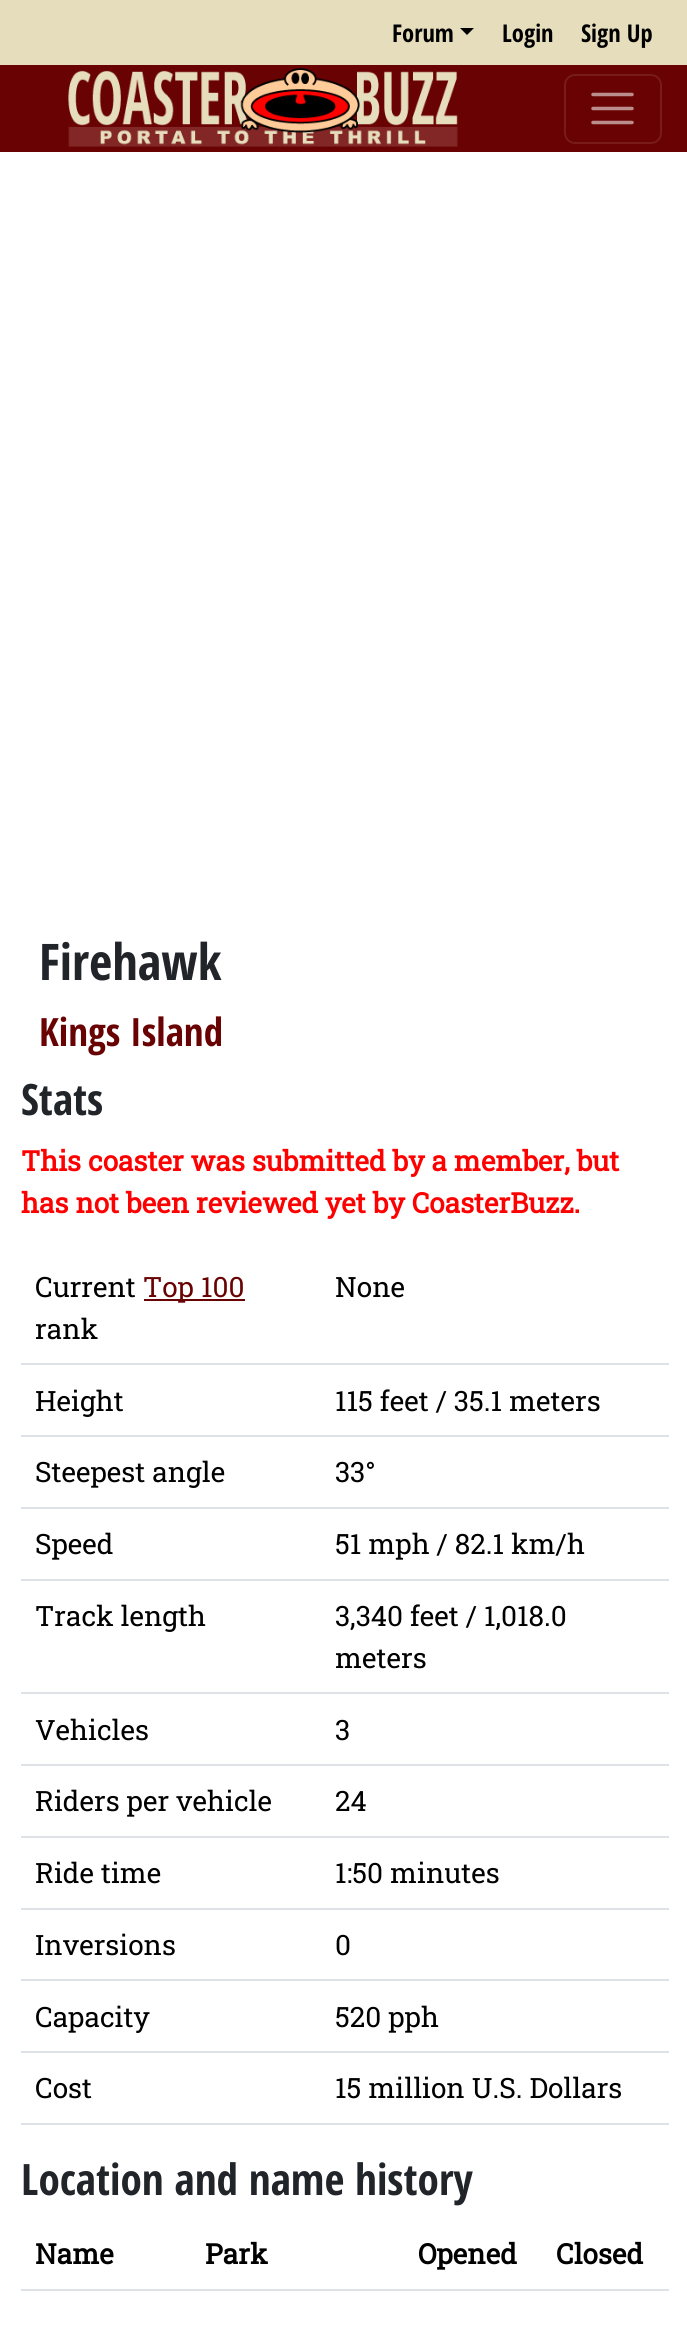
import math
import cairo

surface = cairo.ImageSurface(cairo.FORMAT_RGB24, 687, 2329)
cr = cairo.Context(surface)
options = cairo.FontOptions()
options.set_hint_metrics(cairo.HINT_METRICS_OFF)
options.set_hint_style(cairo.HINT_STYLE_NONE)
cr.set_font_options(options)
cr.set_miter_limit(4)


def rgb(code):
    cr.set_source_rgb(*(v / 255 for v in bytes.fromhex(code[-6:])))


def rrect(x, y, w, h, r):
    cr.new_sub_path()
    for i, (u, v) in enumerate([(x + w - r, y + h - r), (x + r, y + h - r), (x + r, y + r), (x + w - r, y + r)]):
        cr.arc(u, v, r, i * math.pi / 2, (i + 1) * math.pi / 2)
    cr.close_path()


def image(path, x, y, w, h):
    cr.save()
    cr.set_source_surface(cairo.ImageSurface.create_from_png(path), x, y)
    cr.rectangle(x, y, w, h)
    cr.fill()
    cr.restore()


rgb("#ffffff")
cr.paint()
rgb("#e6ddbc")
cr.rectangle(0, 0, 687, 65)
cr.fill()
rgb("#000000")
cr.new_path()
cr.move_to(460, 28)
cr.line_to(474, 28)
cr.line_to(467, 35)
cr.close_path()
cr.fill()
rgb("#690202")
cr.rectangle(0, 65, 687, 87)
cr.fill()
image("img/1.png", 68, 68, 390, 79)
rrect(565, 75, 96, 68, 10)
rgb("#781b1b")
cr.stroke()
cr.new_path()
cr.move_to(593, 94.5)
cr.line_to(632, 94.5)
cr.move_to(593, 108.5)
cr.line_to(632, 108.5)
cr.move_to(593, 122.5)
cr.line_to(632, 122.5)
rgb("#bc8d8d")
cr.set_line_width(3.5)
cr.set_line_cap(cairo.LINE_CAP_ROUND)
cr.stroke()
for x, y, w, h, color in [
    (144, 1299, 101, 2, "#690202"),
    (21, 1363, 648, 2, "#dee2e6"),
    (21, 1435, 648, 2, "#dee2e6"),
    (21, 1507, 648, 2, "#dee2e6"),
    (21, 1579, 648, 2, "#dee2e6"),
    (21, 1692, 648, 2, "#dee2e6"),
    (21, 1764, 648, 2, "#dee2e6"),
    (21, 1836, 648, 2, "#dee2e6"),
    (21, 1908, 648, 2, "#dee2e6"),
    (21, 1979, 648, 2, "#dee2e6"),
    (21, 2051, 648, 2, "#dee2e6"),
    (21, 2123, 648, 2, "#dee2e6"),
    (21, 2289, 648, 2, "#dee2e6"),
]:
    rgb(color)
    cr.rectangle(x, y, w, h)
    cr.fill()
cr.select_font_face("Open Sans Condensed", cairo.FONT_SLANT_NORMAL, cairo.FONT_WEIGHT_BOLD)
cr.set_font_size(24.5)
rgb("#000000")
for x, y, s in [
    (392, 42, "Forum"),
    (502, 42, "Login"),
    (581, 42, "Sign Up"),
]:
    cr.move_to(x, y)
    cr.show_text(s)
cr.set_font_size(50.5)
rgb("#212529")
cr.move_to(39, 980)
cr.show_text("Firehawk")
cr.set_font_size(39)
rgb("#690202")
cr.move_to(39, 1046)
cr.show_text("Kings Island")
cr.set_font_size(43.25)
rgb("#212529")
cr.move_to(21, 1115)
cr.show_text("Stats")
cr.select_font_face("Roboto Slab", cairo.FONT_SLANT_NORMAL, cairo.FONT_WEIGHT_BOLD)
cr.set_font_size(28)
rgb("#ff0000")
cr.move_to(21, 1171)
cr.show_text("This coaster was submitted by a member, but")
cr.move_to(21, 1213)
cr.show_text("has not been reviewed yet by CoasterBuzz.")
cr.select_font_face("Roboto Slab")
rgb("#000000")
cr.move_to(35, 1297)
cr.show_text("Current")
rgb("#690202")
cr.move_to(143, 1297)
cr.show_text("Top 100")
rgb("#000000")
for x, y, s in [
    (35, 1339, "rank"),
    (335, 1297, "None"),
    (35, 1411, "Height"),
    (335, 1411, "115 feet / 35.1 meters"),
    (35, 1482, "Steepest angle"),
    (335, 1482, "33°"),
    (35, 1554, "Speed"),
    (335, 1554, "51 mph / 82.1 km/h"),
    (35, 1626, "Track length"),
    (335, 1626, "3,340 feet / 1,018.0"),
    (335, 1668, "meters"),
    (35, 1740, "Vehicles"),
    (335, 1740, "3"),
    (35, 1811, "Riders per vehicle"),
    (335, 1811, "24"),
    (35, 1883, "Ride time"),
    (335, 1883, "1:50 minutes"),
    (35, 1955, "Inversions"),
    (335, 1955, "0"),
    (35, 2027, "Capacity"),
    (335, 2027, "520 pph"),
    (35, 2098, "Cost"),
    (335, 2098, "15 million U.S. Dollars"),
]:
    cr.move_to(x, y)
    cr.show_text(s)
cr.select_font_face("Open Sans Condensed", cairo.FONT_SLANT_NORMAL, cairo.FONT_WEIGHT_BOLD)
cr.set_font_size(43.25)
rgb("#212529")
cr.move_to(21, 2195)
cr.show_text("Location and name history")
cr.select_font_face("Roboto Slab", cairo.FONT_SLANT_NORMAL, cairo.FONT_WEIGHT_BOLD)
cr.set_font_size(28)
rgb("#000000")
for x, y, s in [
    (35, 2264, "Name"),
    (205, 2264, "Park"),
    (418, 2264, "Opened"),
    (556, 2264, "Closed"),
]:
    cr.move_to(x, y)
    cr.show_text(s)
surface.write_to_png("page.png")
